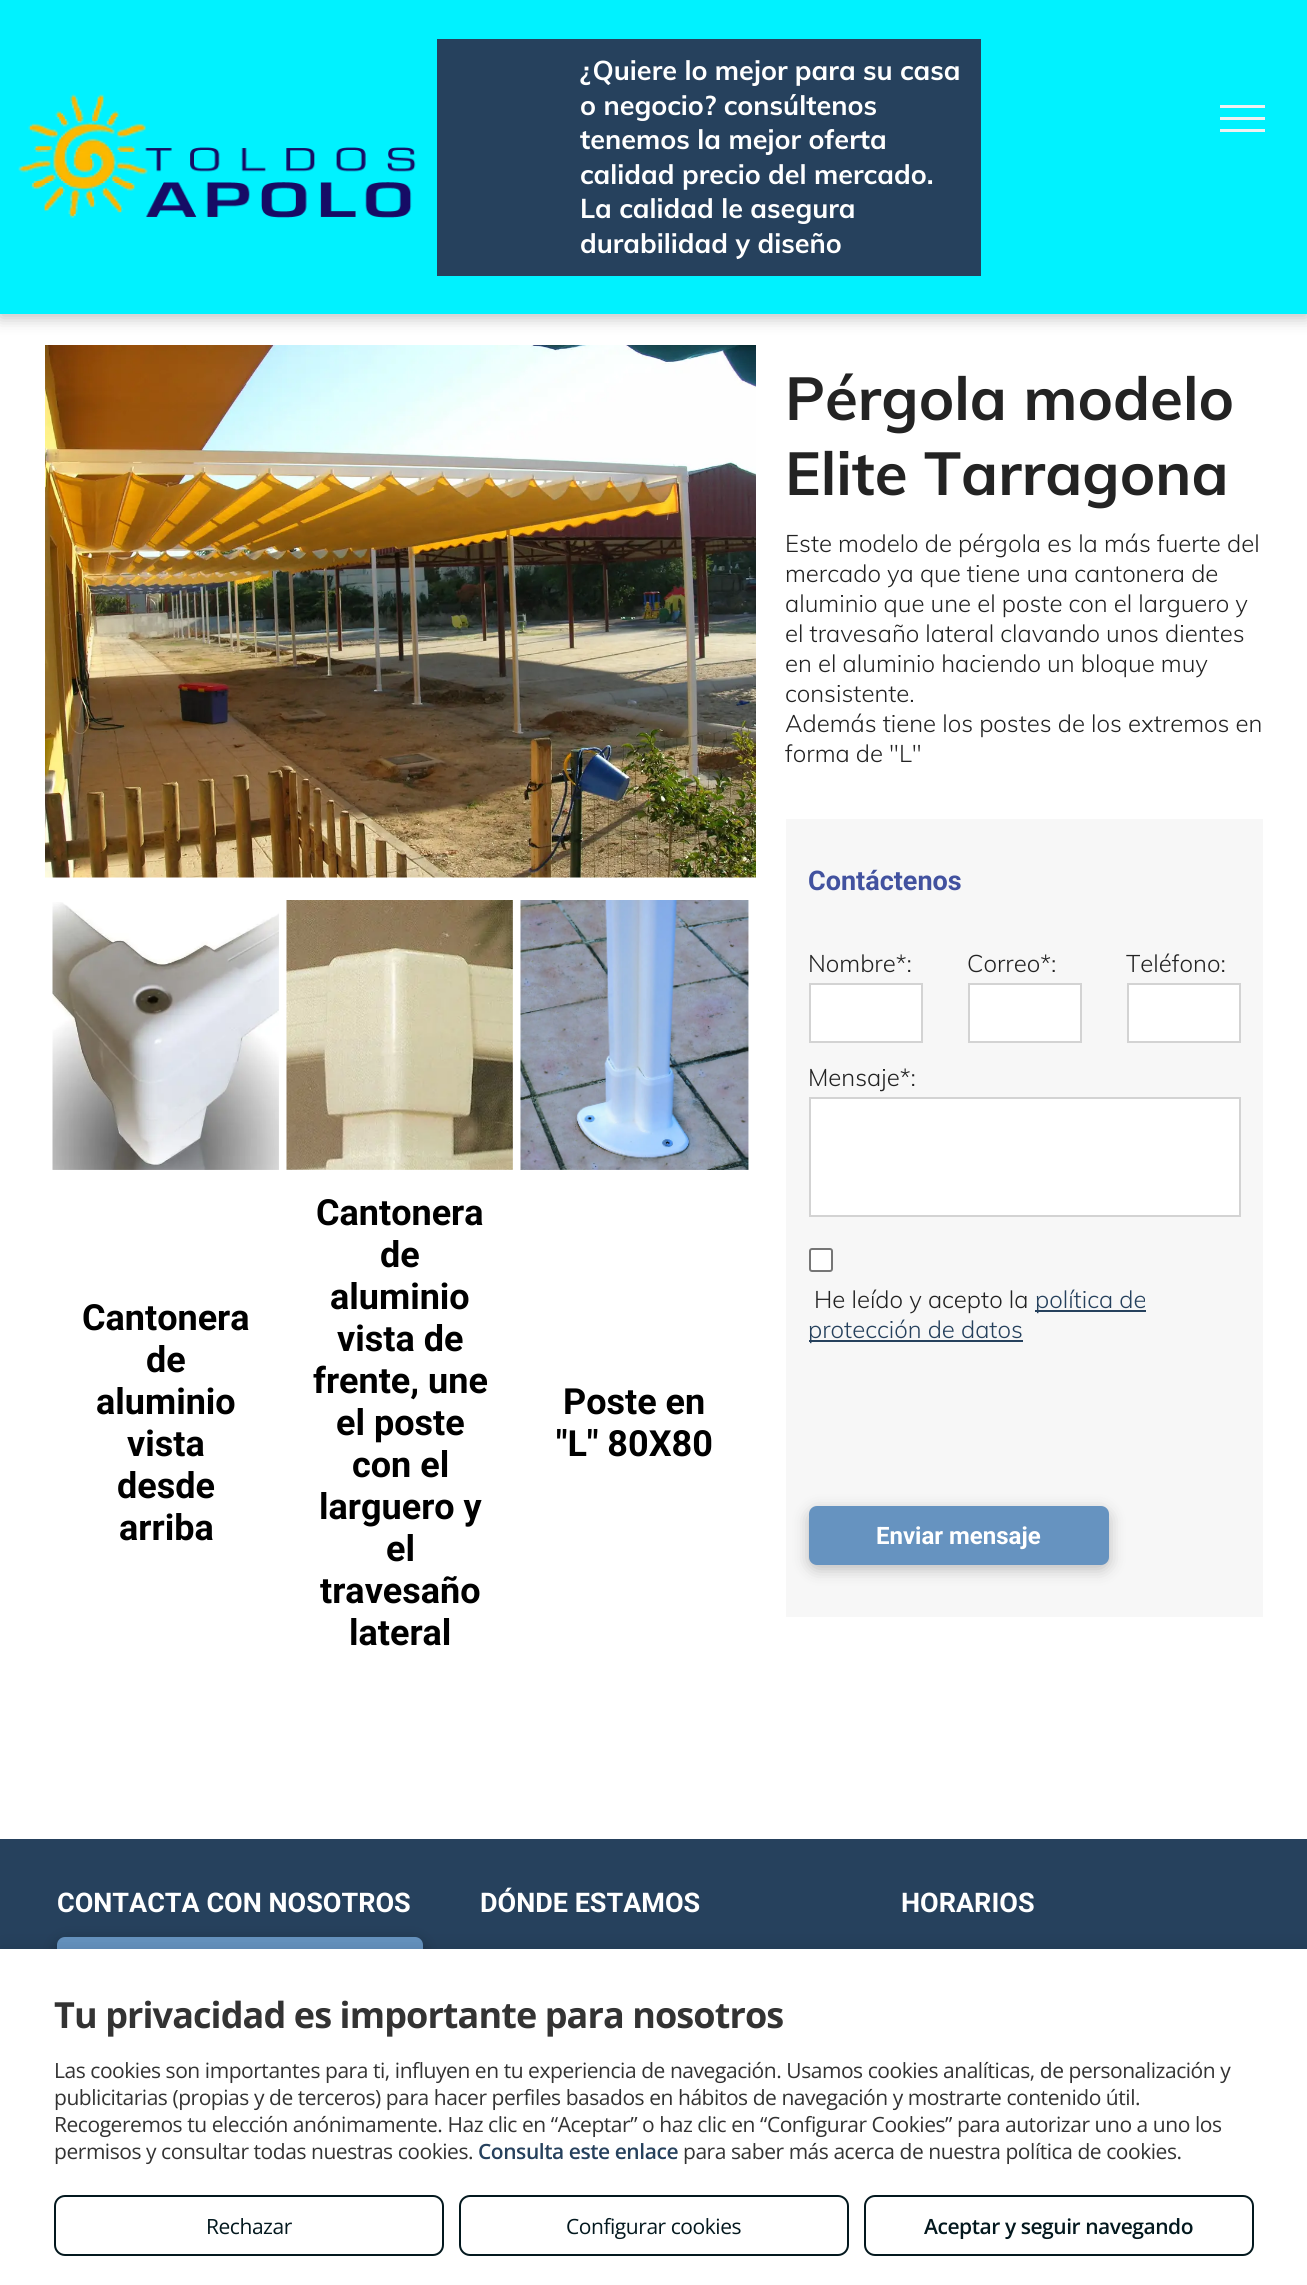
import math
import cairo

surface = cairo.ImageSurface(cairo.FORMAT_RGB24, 1307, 2285)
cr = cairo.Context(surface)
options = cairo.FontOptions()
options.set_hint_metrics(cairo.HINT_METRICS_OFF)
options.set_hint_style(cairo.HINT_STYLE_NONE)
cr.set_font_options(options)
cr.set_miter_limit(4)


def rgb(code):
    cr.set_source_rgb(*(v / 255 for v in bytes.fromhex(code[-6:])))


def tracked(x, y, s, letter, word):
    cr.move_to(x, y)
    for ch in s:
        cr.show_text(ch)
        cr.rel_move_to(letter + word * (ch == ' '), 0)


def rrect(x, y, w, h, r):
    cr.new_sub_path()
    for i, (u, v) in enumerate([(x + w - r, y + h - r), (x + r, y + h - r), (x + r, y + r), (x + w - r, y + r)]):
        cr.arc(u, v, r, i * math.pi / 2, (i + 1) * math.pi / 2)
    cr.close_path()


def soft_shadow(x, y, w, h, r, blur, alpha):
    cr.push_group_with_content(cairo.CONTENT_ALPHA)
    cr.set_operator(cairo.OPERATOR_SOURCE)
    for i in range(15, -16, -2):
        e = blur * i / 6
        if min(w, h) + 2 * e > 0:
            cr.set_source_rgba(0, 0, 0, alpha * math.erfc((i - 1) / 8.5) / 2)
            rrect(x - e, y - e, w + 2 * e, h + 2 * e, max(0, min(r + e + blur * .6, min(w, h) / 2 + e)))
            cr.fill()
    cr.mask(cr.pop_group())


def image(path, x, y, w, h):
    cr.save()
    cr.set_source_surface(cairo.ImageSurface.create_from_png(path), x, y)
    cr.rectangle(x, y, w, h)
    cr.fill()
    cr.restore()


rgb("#ffffff")
cr.paint()
rgb("#00f2ff")
cr.rectangle(0, 0, 1307, 314)
cr.fill()
cr.save()
cr.set_fill_rule(cairo.FILL_RULE_EVEN_ODD)
cr.new_path()
cr.move_to(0, 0)
cr.line_to(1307, 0)
cr.line_to(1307, 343)
cr.line_to(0, 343)
cr.close_path()
cr.move_to(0, 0)
cr.line_to(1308, 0)
cr.line_to(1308, 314)
cr.line_to(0, 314)
cr.close_path()
cr.clip()
rgb("#000000")
soft_shadow(0, 5, 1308, 313, 0, 8, 0.25)
cr.restore()
image("img/1.png", 18, 94, 398, 124)
for x, y, w, h, color in [
    (437, 39, 544, 237, "#26415d"),
    (1220, 105, 45, 3, "#f0f0f0"),
    (1220, 117, 45, 3, "#f0f0f0"),
    (1220, 129, 45, 3, "#f0f0f0"),
]:
    rgb(color)
    cr.rectangle(x, y, w, h)
    cr.fill()
image("img/2.png", 45, 345, 711, 533)
image("img/3.png", 52, 902, 227, 268)
image("img/4.png", 286, 900, 227, 270)
image("img/5.png", 520, 900, 229, 270)
rgb("#f7f7f7")
cr.rectangle(786, 819, 477, 798)
cr.fill()
rgb("#ffffff")
cr.rectangle(810, 984, 112, 58)
cr.fill_preserve()
rgb("#d3d3d3")
cr.stroke()
rgb("#ffffff")
cr.rectangle(969, 984, 112, 58)
cr.fill_preserve()
rgb("#d3d3d3")
cr.stroke()
rgb("#ffffff")
cr.rectangle(1128, 984, 112, 58)
cr.fill_preserve()
rgb("#d3d3d3")
cr.stroke()
rgb("#ffffff")
cr.rectangle(810, 1098, 430, 118)
cr.fill_preserve()
rgb("#d3d3d3")
cr.stroke()
rgb("#ffffff")
rrect(810, 1249, 22, 22, 2)
cr.fill_preserve()
rgb("#767676")
cr.stroke()
rgb("#26415d")
cr.rectangle(1035, 1310, 111, 2)
cr.fill()
cr.rectangle(809, 1340, 214, 2)
cr.fill()
rgb("#000000")
soft_shadow(809, 1511, 300, 58, 8, 8, 0.25)
rgb("#6693c0")
rrect(809, 1506, 300, 59, 8)
cr.fill()
rgb("#26415d")
cr.rectangle(0, 1839, 1307, 110)
cr.fill()
rgb("#000000")
soft_shadow(57, 1941, 366, 77, 8, 8, 0.25)
rgb("#6693c0")
rrect(57, 1937, 366, 76, 8)
cr.fill()
rgb("#000000")
soft_shadow(0, 1946, 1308, 337, 0, 7.5, 0.1)
rgb("#ffffff")
cr.rectangle(0, 1949, 1307, 336)
cr.fill()
rrect(55, 2196, 388, 59, 10)
rgb("#03181e")
cr.stroke()
rrect(460, 2196, 388, 59, 10)
cr.stroke()
rrect(865, 2196, 388, 59, 10)
cr.stroke()
cr.select_font_face("Muli", cairo.FONT_SLANT_NORMAL, cairo.FONT_WEIGHT_BOLD)
cr.set_font_size(27)
rgb("#ffffff")
for x, y, s in [
    (580, 80, "¿Quiere lo mejor para su casa"),
    (580, 115, "o negocio? consúltenos"),
    (580, 149, "tenemos la mejor oferta"),
    (580, 184, "calidad precio del mercado."),
    (580, 218, "La calidad le asegura"),
    (580, 253, "durabilidad y diseño"),
]:
    cr.move_to(x, y)
    cr.show_text(s)
cr.select_font_face("Roboto", cairo.FONT_SLANT_NORMAL, cairo.FONT_WEIGHT_BOLD)
cr.set_font_size(36)
rgb("#000000")
for x, y, s in [
    (82, 1330, "Cantonera"),
    (146, 1372, "de"),
    (96, 1414, "aluminio"),
    (127, 1456, "vista"),
    (117, 1498, "desde"),
    (119, 1540, "arriba"),
    (316, 1225, "Cantonera"),
    (380, 1267, "de"),
    (330, 1309, "aluminio"),
    (337, 1351, "vista de"),
    (313, 1393, "frente, une"),
    (336, 1435, "el poste"),
    (352, 1477, "con el"),
    (319, 1519, "larguero y"),
    (386, 1561, "el"),
    (320, 1603, "travesaño"),
    (349, 1645, "lateral"),
    (563, 1414, "Poste en"),
    (556, 1456, "\"L\" 80X80"),
]:
    cr.move_to(x, y)
    cr.show_text(s)
cr.select_font_face("Muli", cairo.FONT_SLANT_NORMAL, cairo.FONT_WEIGHT_BOLD)
cr.set_font_size(60)
rgb("#232323")
cr.move_to(785, 420)
cr.show_text("Pérgola modelo")
cr.move_to(785, 495)
cr.show_text("Elite Tarragona")
cr.select_font_face("Muli Light")
cr.set_font_size(24)
for x, y, s in [
    (785, 552, "Este modelo de pérgola es la más fuerte del"),
    (785, 582, "mercado ya que tiene una cantonera de"),
    (785, 612, "aluminio que une el poste con el larguero y"),
    (785, 642, "el travesaño lateral clavando unos dientes"),
    (785, 672, "en el aluminio haciendo un bloque muy"),
    (785, 702, "consistente."),
    (785, 732, "Además tiene los postes de los extremos en"),
    (785, 762, "forma de \"L\""),
]:
    cr.move_to(x, y)
    cr.show_text(s)
cr.select_font_face("Roboto", cairo.FONT_SLANT_NORMAL, cairo.FONT_WEIGHT_BOLD)
cr.set_font_size(27)
rgb("#42529f")
cr.move_to(808, 890)
cr.show_text("Contáctenos")
cr.select_font_face("Muli Light")
cr.set_font_size(24)
rgb("#232323")
for x, y, s in [
    (808, 972, "Nombre*:"),
    (967, 972, "Correo*:"),
    (1126, 972, "Teléfono:"),
    (808, 1086, "Mensaje*:"),
    (814, 1308, "He leído y acepto la"),
]:
    cr.move_to(x, y)
    cr.show_text(s)
rgb("#26415d")
cr.move_to(1035, 1308)
cr.show_text("política de")
cr.move_to(808, 1338)
cr.show_text("protección de datos")
cr.select_font_face("Roboto", cairo.FONT_SLANT_NORMAL, cairo.FONT_WEIGHT_BOLD)
rgb("#ffffff")
cr.move_to(876, 1544)
cr.show_text("Enviar mensaje")
cr.set_font_size(27)
for x, y, s in [
    (57, 1912, "CONTACTA CON NOSOTROS"),
    (480, 1912, "DÓNDE ESTAMOS"),
    (901, 1912, "HORARIOS"),
]:
    cr.move_to(x, y)
    cr.show_text(s)
cr.select_font_face("Open Sans", cairo.FONT_SLANT_NORMAL, cairo.FONT_WEIGHT_BOLD)
cr.set_font_size(36)
rgb("#333333")
tracked(54, 2028, "Tu privacidad es importante para nosotros", -0.9, 0)
cr.select_font_face("Open Sans")
cr.set_font_size(21)
for x, y, s in [
    (54, 2078, "Las cookies son importantes para ti, influyen en tu experiencia de navegación. Usamos cookies analíticas, de personalización y"),
    (54, 2105, "publicitarias (propias y de terceros) para hacer perfiles basados en hábitos de navegación y mostrarte contenido útil."),
    (54, 2132, "Recogeremos tu elección anónimamente. Haz clic en “Aceptar” o haz clic en “Configurar Cookies” para autorizar uno a uno los"),
    (54, 2159, "permisos y consultar todas nuestras cookies."),
]:
    tracked(x, y, s, -0.45, 0)
cr.select_font_face("Open Sans SemiBold")
rgb("#26415d")
tracked(478, 2159, "Consulta este enlace", -0.45, 0)
cr.select_font_face("Open Sans")
rgb("#333333")
tracked(683, 2159, "para saber más acerca de nuestra política de cookies.", -0.45, 0)
rgb("#03181e")
tracked(206, 2234, "Rechazar", -0.45, 0)
tracked(566, 2234, "Configurar cookies", -0.45, 0)
cr.select_font_face("Open Sans SemiBold")
tracked(924, 2234, "Aceptar y seguir navegando", -0.45, 0)
surface.write_to_png("page.png")
